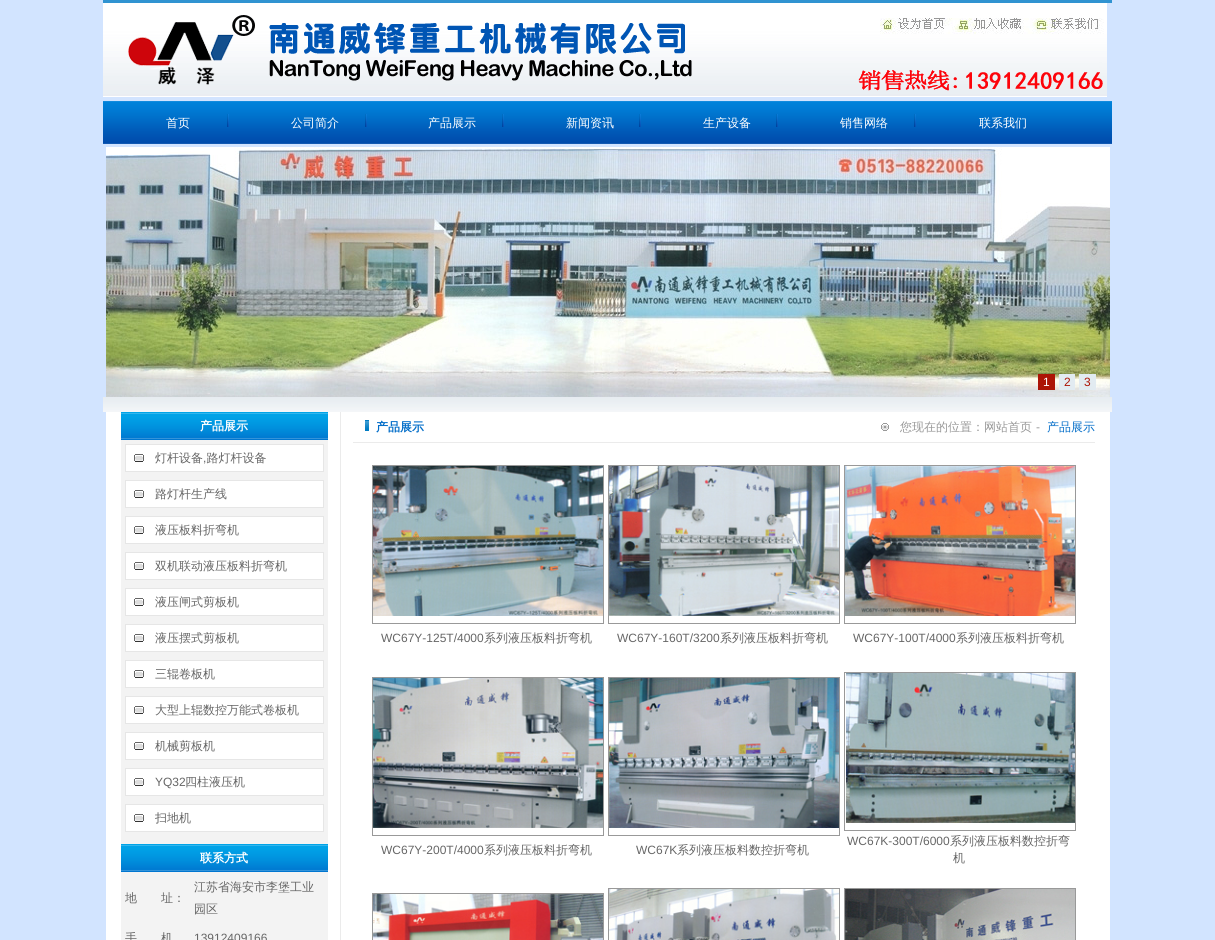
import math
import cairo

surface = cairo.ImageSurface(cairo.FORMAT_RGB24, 1215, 940)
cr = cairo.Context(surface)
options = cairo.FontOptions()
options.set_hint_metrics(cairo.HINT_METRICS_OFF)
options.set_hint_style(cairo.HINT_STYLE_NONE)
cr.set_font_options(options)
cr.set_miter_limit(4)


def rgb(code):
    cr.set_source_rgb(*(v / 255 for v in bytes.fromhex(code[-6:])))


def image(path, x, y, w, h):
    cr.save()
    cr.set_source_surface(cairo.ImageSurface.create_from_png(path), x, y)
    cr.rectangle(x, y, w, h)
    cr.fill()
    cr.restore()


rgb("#d2e4ff")
cr.paint()
rgb("#3093d1")
cr.rectangle(103, 0, 1009, 3)
cr.fill()
image("img/1.png", 103, 3, 1004, 94)
image("img/2.png", 103, 101, 1009, 43)
image("img/3.png", 227, 114, 2, 13)
image("img/3.png", 365, 114, 2, 13)
image("img/3.png", 502, 114, 2, 13)
image("img/3.png", 639, 114, 2, 13)
image("img/3.png", 776, 114, 2, 13)
image("img/3.png", 914, 114, 2, 13)
image("img/4.png", 106, 147, 1004, 250)
for x, y, w, h, color in [
    (1038, 374, 17, 16, "#ac1506"),
    (1059, 374, 16, 16, "#e2ebf1"),
    (1079, 374, 17, 16, "#e2ebf1"),
]:
    rgb(color)
    cr.rectangle(x, y, w, h)
    cr.fill()
image("img/5.png", 103, 397, 1009, 15)
rgb("#ffffff")
cr.rectangle(106, 412, 1004, 528)
cr.fill()
rgb("#ebebeb")
cr.rectangle(340, 412, 1, 528)
cr.fill()
image("img/6.png", 121, 412, 207, 28)
rgb("#f3f3f3")
cr.rectangle(121, 440, 207, 404)
cr.fill()
image("img/7.png", 125, 444, 199, 28)
image("img/7.png", 125, 480, 199, 28)
image("img/7.png", 125, 516, 199, 28)
image("img/7.png", 125, 552, 199, 28)
image("img/7.png", 125, 588, 199, 28)
image("img/7.png", 125, 624, 199, 28)
image("img/7.png", 125, 660, 199, 28)
image("img/7.png", 125, 696, 199, 28)
image("img/7.png", 125, 732, 199, 28)
image("img/7.png", 125, 768, 199, 28)
image("img/7.png", 125, 804, 199, 28)
image("img/6.png", 121, 844, 207, 28)
cr.rectangle(121, 872, 207, 68)
cr.fill()
image("img/8.png", 365, 420, 4, 11)
image("img/9.png", 881, 423, 8, 8)
for x, y, w, h, color in [
    (353, 442, 742, 1, "#ebebeb"),
    (372, 465, 232, 159, "#999999"),
    (373, 616, 230, 7, "#ffffff"),
]:
    rgb(color)
    cr.rectangle(x, y, w, h)
    cr.fill()
image("img/10.png", 373, 466, 230, 150)
rgb("#999999")
cr.rectangle(608, 465, 232, 159)
cr.fill()
rgb("#ffffff")
cr.rectangle(609, 616, 230, 7)
cr.fill()
image("img/11.png", 609, 466, 230, 150)
rgb("#999999")
cr.rectangle(844, 465, 232, 159)
cr.fill()
rgb("#ffffff")
cr.rectangle(845, 616, 230, 7)
cr.fill()
image("img/12.png", 845, 466, 230, 150)
rgb("#999999")
cr.rectangle(372, 677, 232, 159)
cr.fill()
rgb("#ffffff")
cr.rectangle(373, 828, 230, 7)
cr.fill()
image("img/13.png", 373, 678, 230, 150)
rgb("#999999")
cr.rectangle(608, 677, 232, 159)
cr.fill()
rgb("#ffffff")
cr.rectangle(609, 828, 230, 7)
cr.fill()
image("img/14.png", 609, 678, 230, 150)
rgb("#999999")
cr.rectangle(844, 672, 232, 159)
cr.fill()
rgb("#ffffff")
cr.rectangle(845, 673, 230, 157)
cr.fill()
image("img/15.png", 846, 673, 229, 150)
rgb("#999999")
cr.rectangle(372, 893, 232, 47)
cr.fill()
image("img/16.png", 373, 894, 230, 46)
cr.rectangle(608, 888, 232, 52)
cr.fill()
image("img/17.png", 609, 889, 230, 51)
cr.rectangle(844, 888, 232, 52)
cr.fill()
image("img/18.png", 845, 889, 230, 51)
cr.select_font_face("WenQuanYi Zen Hei Medium")
cr.set_font_size(12)
rgb("#ffffff")
for x, y, s in [
    (166, 127, "首页"),
    (291, 127, "公司简介"),
    (428, 127, "产品展示"),
    (566, 127, "新闻资讯"),
    (703, 127, "生产设备"),
    (840, 127, "销售网络"),
    (979, 127, "联系我们"),
]:
    cr.move_to(x, y)
    cr.show_text(s)
cr.select_font_face("Liberation Sans")
cr.move_to(1043, 386)
cr.show_text("1")
rgb("#ac1506")
cr.move_to(1064, 386)
cr.show_text("2")
cr.move_to(1084, 386)
cr.show_text("3")
cr.select_font_face("WenQuanYi Zen Hei", cairo.FONT_SLANT_NORMAL, cairo.FONT_WEIGHT_BOLD)
rgb("#ffffff")
cr.move_to(200, 430)
cr.show_text("产品展示")
cr.select_font_face("WenQuanYi Zen Hei Medium")
rgb("#666666")
cr.move_to(155, 462)
cr.show_text("灯杆设备 路灯杆设备")
cr.select_font_face("Liberation Sans")
cr.move_to(203, 462)
cr.show_text(",")
cr.select_font_face("WenQuanYi Zen Hei Medium")
for x, y, s in [
    (155, 498, "路灯杆生产线"),
    (155, 534, "液压板料折弯机"),
    (155, 570, "双机联动液压板料折弯机"),
    (155, 606, "液压闸式剪板机"),
    (155, 642, "液压摆式剪板机"),
    (155, 678, "三辊卷板机"),
    (155, 714, "大型上辊数控万能式卷板机"),
    (155, 750, "机械剪板机"),
]:
    cr.move_to(x, y)
    cr.show_text(s)
cr.select_font_face("Liberation Sans")
cr.move_to(155, 786)
cr.show_text("YQ32")
cr.select_font_face("WenQuanYi Zen Hei Medium")
cr.move_to(185, 786)
cr.show_text("四柱液压机")
cr.move_to(155, 822)
cr.show_text("扫地机")
cr.select_font_face("WenQuanYi Zen Hei", cairo.FONT_SLANT_NORMAL, cairo.FONT_WEIGHT_BOLD)
rgb("#ffffff")
cr.move_to(200, 862)
cr.show_text("联系方式")
cr.select_font_face("WenQuanYi Zen Hei Medium")
rgb("#666666")
for x, y, s in [
    (125, 902, "地　　址："),
    (194, 891, "江苏省海安市李堡工业"),
    (194, 913, "园区"),
    (125, 942, "手　　机"),
]:
    cr.move_to(x, y)
    cr.show_text(s)
cr.select_font_face("Liberation Sans")
cr.move_to(194, 942)
cr.show_text("13912409166")
cr.select_font_face("WenQuanYi Zen Hei", cairo.FONT_SLANT_NORMAL, cairo.FONT_WEIGHT_BOLD)
rgb("#006cc8")
cr.move_to(376, 431)
cr.show_text("产品展示")
cr.select_font_face("WenQuanYi Zen Hei Medium")
rgb("#989898")
cr.move_to(900, 431)
cr.show_text("您现在的位置：网站首页")
cr.select_font_face("Liberation Sans")
cr.move_to(1036, 431)
cr.show_text("-")
cr.select_font_face("WenQuanYi Zen Hei Medium")
rgb("#006cc8")
cr.move_to(1047, 431)
cr.show_text("产品展示")
cr.select_font_face("Liberation Sans")
rgb("#666666")
cr.move_to(381, 642)
cr.show_text("WC67Y-125T/4000")
cr.select_font_face("WenQuanYi Zen Hei Medium")
cr.move_to(484, 642)
cr.show_text("系列液压板料折弯机")
cr.select_font_face("Liberation Sans")
cr.move_to(617, 642)
cr.show_text("WC67Y-160T/3200")
cr.select_font_face("WenQuanYi Zen Hei Medium")
cr.move_to(720, 642)
cr.show_text("系列液压板料折弯机")
cr.select_font_face("Liberation Sans")
cr.move_to(853, 642)
cr.show_text("WC67Y-100T/4000")
cr.select_font_face("WenQuanYi Zen Hei Medium")
cr.move_to(956, 642)
cr.show_text("系列液压板料折弯机")
cr.select_font_face("Liberation Sans")
cr.move_to(381, 854)
cr.show_text("WC67Y-200T/4000")
cr.select_font_face("WenQuanYi Zen Hei Medium")
cr.move_to(484, 854)
cr.show_text("系列液压板料折弯机")
cr.select_font_face("Liberation Sans")
cr.move_to(636, 854)
cr.show_text("WC67K")
cr.select_font_face("WenQuanYi Zen Hei Medium")
cr.move_to(677, 854)
cr.show_text("系列液压板料数控折弯机")
cr.select_font_face("Liberation Sans")
cr.move_to(847, 845)
cr.show_text("WC67K-300T/6000")
cr.select_font_face("WenQuanYi Zen Hei Medium")
cr.move_to(950, 845)
cr.show_text("系列液压板料数控折弯")
cr.move_to(953, 862)
cr.show_text("机")
surface.write_to_png("page.png")
